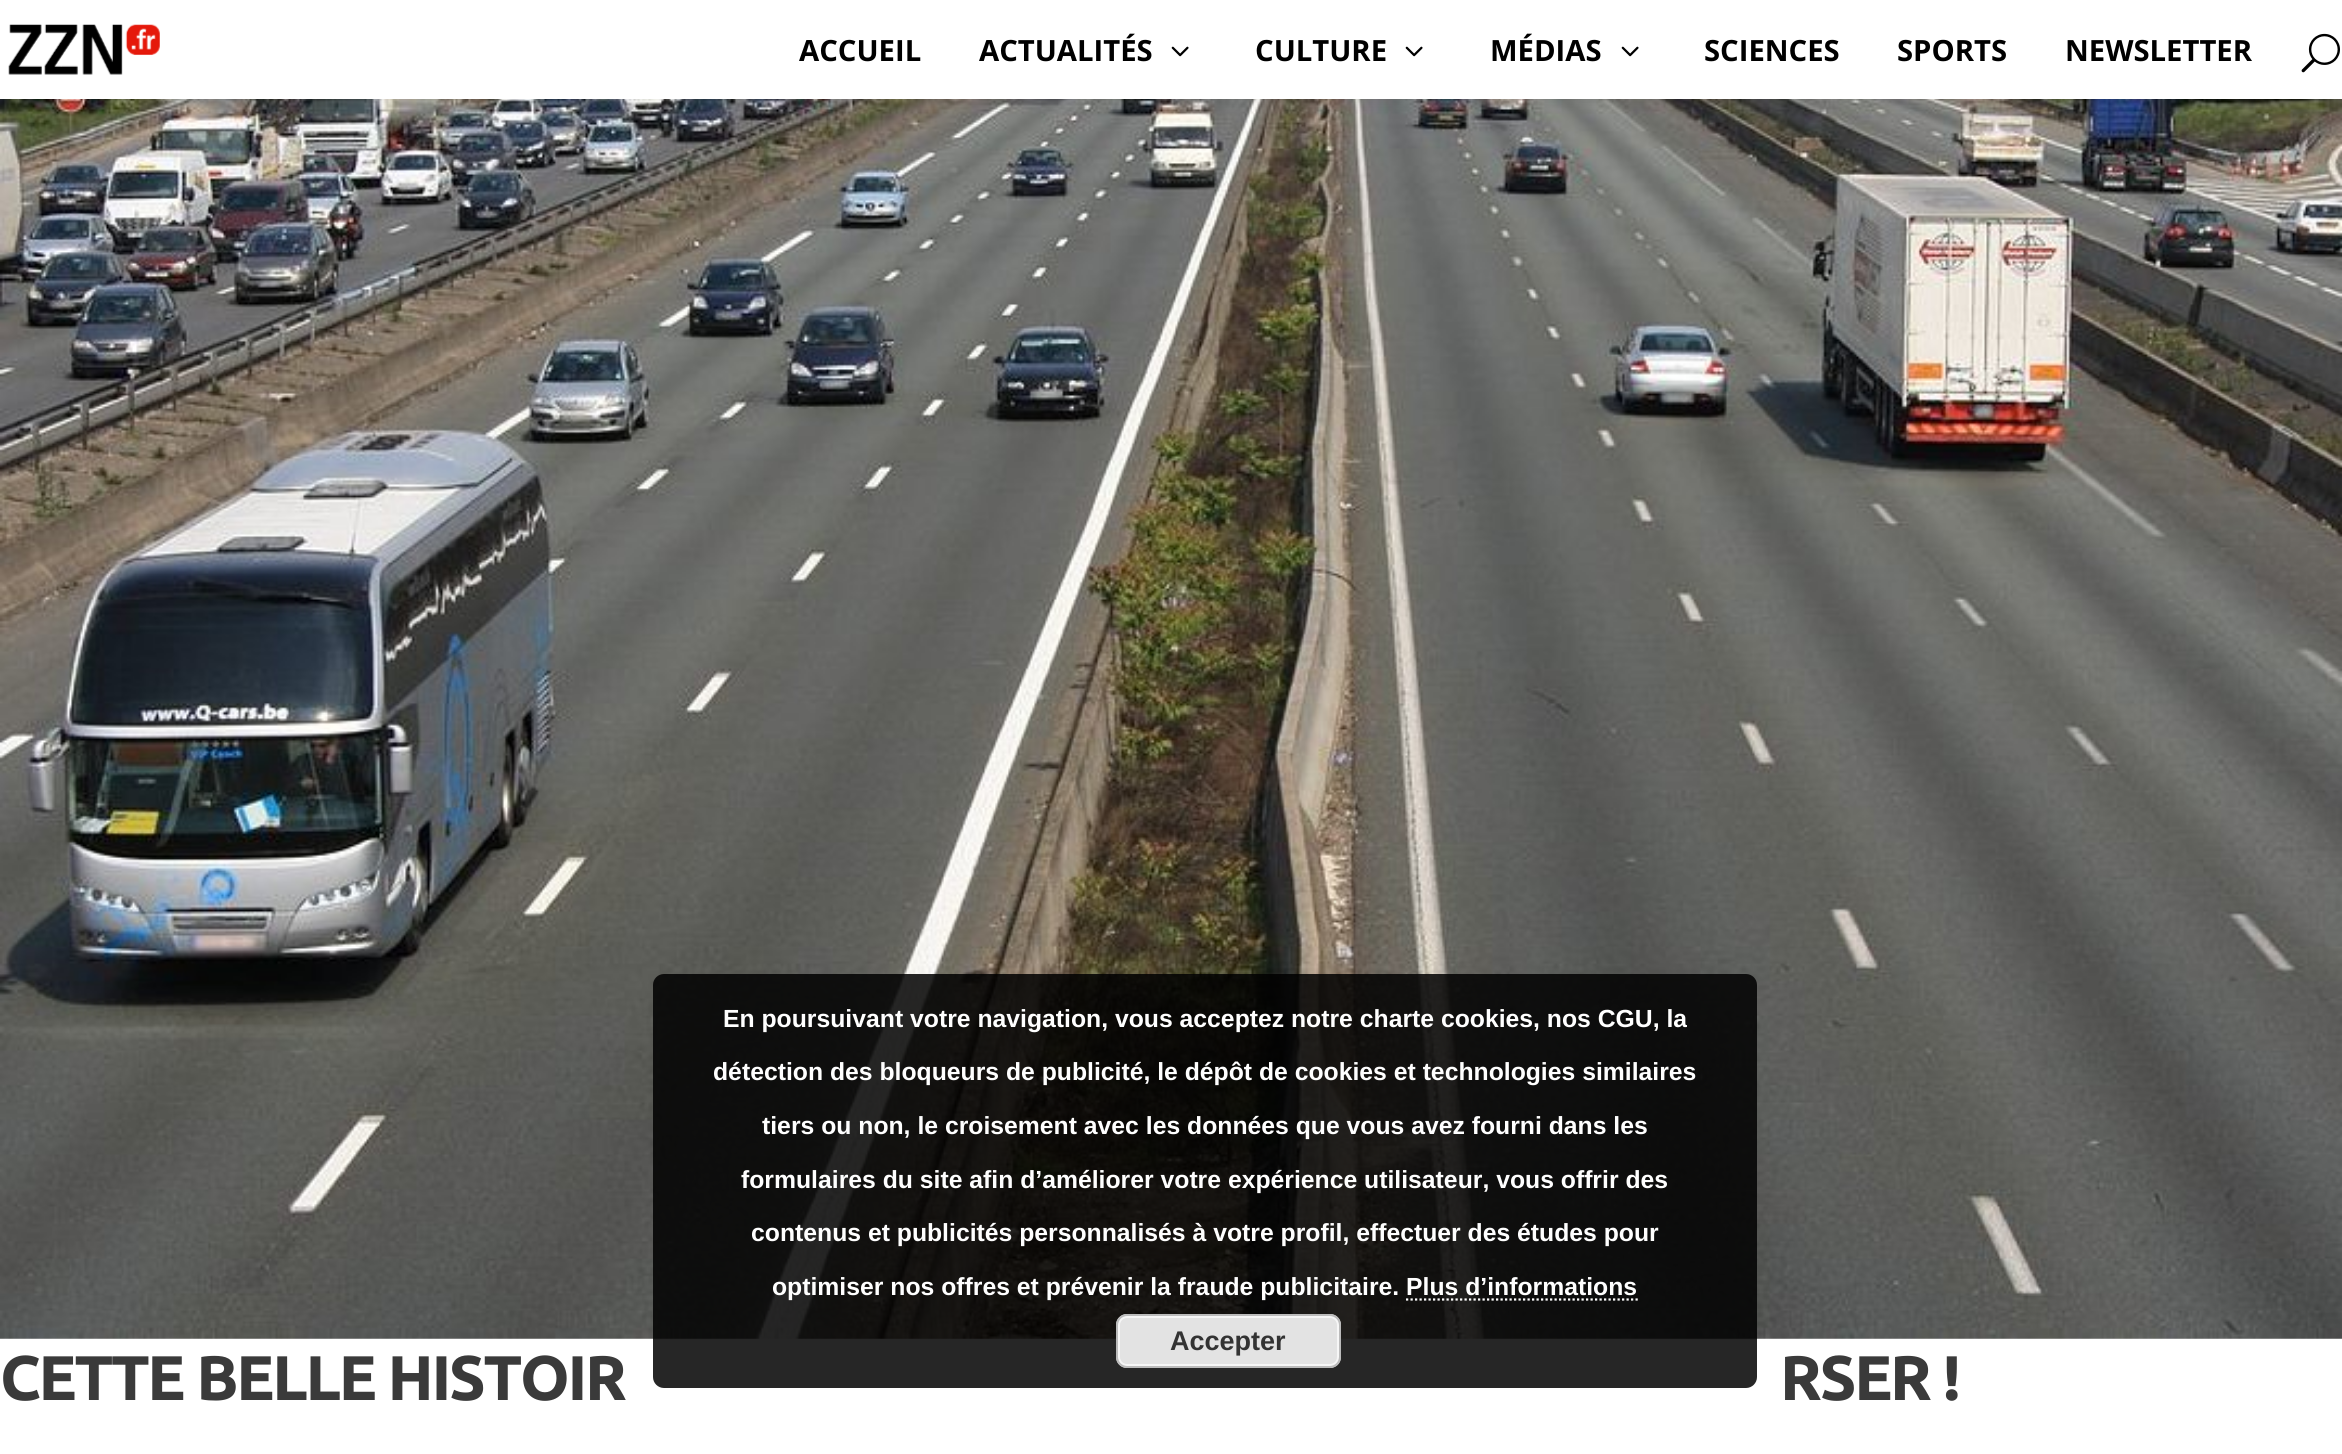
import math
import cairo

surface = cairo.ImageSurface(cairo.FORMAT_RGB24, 2342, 1454)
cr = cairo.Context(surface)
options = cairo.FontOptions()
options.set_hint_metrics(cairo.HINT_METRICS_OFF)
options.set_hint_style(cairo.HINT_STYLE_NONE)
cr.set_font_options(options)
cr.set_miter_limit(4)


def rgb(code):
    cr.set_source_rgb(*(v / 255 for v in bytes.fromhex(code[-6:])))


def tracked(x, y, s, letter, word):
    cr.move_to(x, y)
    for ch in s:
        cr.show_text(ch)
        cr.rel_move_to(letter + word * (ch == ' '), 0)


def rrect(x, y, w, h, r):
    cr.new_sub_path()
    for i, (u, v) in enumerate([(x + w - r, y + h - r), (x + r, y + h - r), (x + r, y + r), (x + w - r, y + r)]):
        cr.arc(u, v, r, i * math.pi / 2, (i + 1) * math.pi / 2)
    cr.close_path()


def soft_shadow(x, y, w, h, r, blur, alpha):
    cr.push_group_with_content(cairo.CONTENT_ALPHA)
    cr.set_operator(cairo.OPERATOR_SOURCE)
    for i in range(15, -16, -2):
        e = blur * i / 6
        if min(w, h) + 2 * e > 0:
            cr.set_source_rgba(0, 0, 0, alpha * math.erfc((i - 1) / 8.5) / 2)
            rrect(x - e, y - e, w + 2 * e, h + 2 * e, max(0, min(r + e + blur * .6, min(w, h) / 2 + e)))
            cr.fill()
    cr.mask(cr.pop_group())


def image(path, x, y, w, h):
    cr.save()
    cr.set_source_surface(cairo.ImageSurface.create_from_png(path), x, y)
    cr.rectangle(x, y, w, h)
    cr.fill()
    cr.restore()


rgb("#ffffff")
cr.paint()
image("img/4.png", 0, 99, 2342, 1240)
rgb("#000000")
soft_shadow(0, 0, 2342, 99, 0, 8, 0.1)
rgb("#ffffff")
cr.rectangle(0, 0, 2342, 99)
cr.fill()
image("img/1.png", 8, 24, 152, 51)
image("img/2.png", 1171, 46, 18, 11)
image("img/2.png", 1405, 46, 18, 11)
image("img/2.png", 1621, 46, 18, 11)
image("img/3.png", 2301, 33, 39, 40)
cr.set_source_rgba(0, 0, 0, 0.85)
rrect(653, 974, 1104, 414, 11)
cr.fill()
cr.new_path()
cr.move_to(1406, 1299.5)
cr.line_to(1638, 1299.5)
rgb("#ffffff")
cr.set_line_width(2.2)
cr.set_dash([2.25, 2.25])
cr.stroke()
rgb("#e3e3e3")
rrect(1116, 1314, 225, 54, 11)
cr.fill()
rrect(1119, 1317, 219, 48, 8)
rgb("#f6f6f6")
cr.set_line_width(2)
cr.set_dash([])
cr.stroke()
rrect(1117, 1315, 223, 52, 10)
rgb("#bbbbbb")
cr.stroke()
cr.select_font_face("Open Sans", cairo.FONT_SLANT_NORMAL, cairo.FONT_WEIGHT_BOLD)
cr.set_font_size(29.25)
rgb("#000000")
for x, y, s in [
    (799, 61, "ACCUEIL"),
    (979, 61, "ACTUALITÉS"),
    (1255, 61, "CULTURE"),
    (1490, 61, "MÉDIAS"),
    (1704, 61, "SCIENCES"),
    (1897, 61, "SPORTS"),
    (2065, 61, "NEWSLETTER"),
]:
    cr.move_to(x, y)
    cr.show_text(s)
cr.select_font_face("Ubuntu", cairo.FONT_SLANT_NORMAL, cairo.FONT_WEIGHT_BOLD)
cr.set_font_size(63)
rgb("#3a3a3a")
tracked(0, 1400, "CETTE BELLE HISTOIR", -2.25, 0)
tracked(1780, 1400, "RSER !", -2.25, 0)
cr.select_font_face("Liberation Sans", cairo.FONT_SLANT_NORMAL, cairo.FONT_WEIGHT_BOLD)
cr.set_font_size(24.75)
rgb("#ffffff")
for x, y, s in [
    (723, 1027, "En poursuivant votre navigation, vous acceptez notre charte cookies, nos CGU, la"),
    (713, 1080, "détection des bloqueurs de publicité, le dépôt de cookies et technologies similaires"),
    (762, 1134, "tiers ou non, le croisement avec les données que vous avez fourni dans les"),
    (741, 1188, "formulaires du site afin d’améliorer votre expérience utilisateur, vous offrir des"),
    (751, 1241, "contenus et publicités personnalisés à votre profil, effectuer des études pour"),
    (772, 1295, "optimiser nos offres et prévenir la fraude publicitaire. Plus d’informations"),
]:
    cr.move_to(x, y)
    cr.show_text(s)
cr.set_font_size(27)
rgb("#333333")
cr.move_to(1170, 1350)
cr.show_text("Accepter")
surface.write_to_png("page.png")
